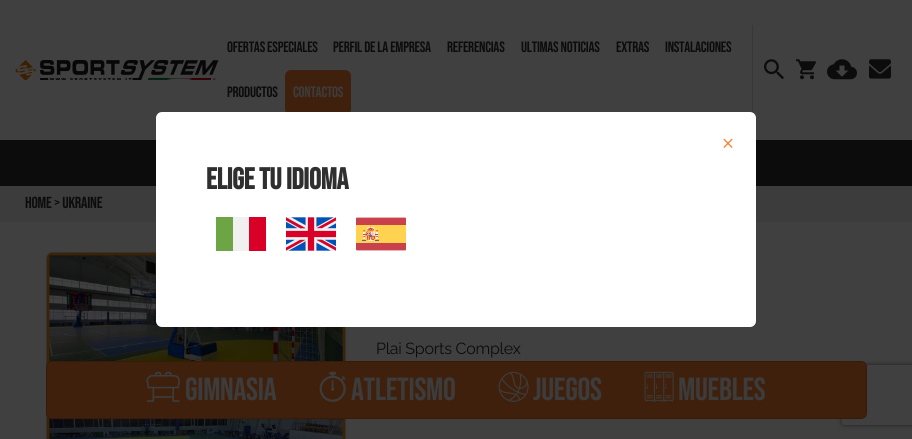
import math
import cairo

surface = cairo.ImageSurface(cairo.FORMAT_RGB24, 912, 439)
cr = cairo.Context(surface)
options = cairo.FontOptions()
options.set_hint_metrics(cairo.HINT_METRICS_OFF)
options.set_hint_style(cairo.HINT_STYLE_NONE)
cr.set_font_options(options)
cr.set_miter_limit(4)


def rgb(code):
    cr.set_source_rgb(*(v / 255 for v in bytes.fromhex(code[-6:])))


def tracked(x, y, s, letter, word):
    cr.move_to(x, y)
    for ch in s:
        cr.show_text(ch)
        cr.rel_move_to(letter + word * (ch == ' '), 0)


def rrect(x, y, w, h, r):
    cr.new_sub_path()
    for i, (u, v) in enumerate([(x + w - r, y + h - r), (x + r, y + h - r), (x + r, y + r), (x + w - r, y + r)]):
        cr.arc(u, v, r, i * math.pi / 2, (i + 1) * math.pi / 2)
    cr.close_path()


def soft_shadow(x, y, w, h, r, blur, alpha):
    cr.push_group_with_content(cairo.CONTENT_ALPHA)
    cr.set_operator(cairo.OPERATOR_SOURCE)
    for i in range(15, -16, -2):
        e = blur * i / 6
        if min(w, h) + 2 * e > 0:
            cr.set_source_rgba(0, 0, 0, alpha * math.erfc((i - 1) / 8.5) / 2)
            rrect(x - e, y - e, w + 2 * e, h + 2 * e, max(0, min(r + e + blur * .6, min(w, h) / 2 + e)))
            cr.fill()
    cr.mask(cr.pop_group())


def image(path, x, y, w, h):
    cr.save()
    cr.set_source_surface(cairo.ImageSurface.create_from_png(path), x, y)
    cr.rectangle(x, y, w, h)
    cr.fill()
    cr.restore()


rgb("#404040")
cr.paint()
rgb("#0c0c0c")
cr.rectangle(0, 140, 912, 46)
cr.fill()
rgb("#0d0a0c")
soft_shadow(0, 0, 912, 140, 0, 3, 0.3)
rgb("#404040")
cr.rectangle(0, 0, 912, 140)
cr.fill()
image("img/1.png", 15, 60, 204, 20)
rgb("#3f200d")
rrect(285, 70, 66, 45, 6)
cr.fill()
rgb("#363837")
cr.rectangle(752, 25, 1, 90)
cr.fill()
image("img/2.png", 764, 59, 20, 21)
image("img/3.png", 796, 59, 20, 21)
image("img/4.png", 827, 59, 30, 21)
image("img/5.png", 869, 59, 22, 20)
rgb("#3c3c3c")
cr.rectangle(0, 186, 912, 36)
cr.fill()
rrect(46.5, 252.5, 299, 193, 5.5)
rgb("#333333")
cr.set_line_width(1)
cr.stroke()
image("img/9.png", 47, 253, 298, 186)
rgb("#ffffff")
rrect(156, 112, 600, 215, 6)
cr.fill()
image("img/6.png", 723, 138, 10, 10)
rgb("#f0f0f0")
cr.new_path()
cr.move_to(249, 217)
cr.line_to(216, 217)
cr.line_to(216, 251)
cr.line_to(266, 251)
cr.line_to(266, 217)
cr.close_path()
cr.fill()
rgb("#6da544")
cr.rectangle(216, 217, 17, 34)
cr.fill()
rgb("#d80027")
cr.rectangle(249, 217, 17, 34)
cr.fill()
image("img/7.png", 286, 217, 50, 34)
image("img/8.png", 356, 217, 50, 34)
cr.save()
cr.set_fill_rule(cairo.FILL_RULE_EVEN_ODD)
cr.new_path()
cr.move_to(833, 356)
cr.line_to(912, 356)
cr.line_to(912, 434)
cr.line_to(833, 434)
cr.close_path()
cr.move_to(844, 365)
cr.line_to(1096, 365)
cr.curve_to(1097, 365, 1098, 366, 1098, 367)
cr.line_to(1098, 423)
cr.curve_to(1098, 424, 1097, 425, 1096, 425)
cr.line_to(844, 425)
cr.curve_to(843, 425, 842, 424, 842, 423)
cr.line_to(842, 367)
cr.curve_to(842, 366, 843, 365, 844, 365)
cr.close_path()
cr.clip()
rgb("#202020")
soft_shadow(842, 365, 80, 60, 2, 2.5, 1)
cr.restore()
rgb("#3f200d")
rrect(46.5, 361.5, 820, 57, 5.5)
cr.fill_preserve()
rgb("#381a07")
cr.stroke()
image("img/10.png", 146, 371, 34, 31)
image("img/11.png", 319, 371, 27, 31)
image("img/12.png", 498, 371, 31, 31)
image("img/13.png", 644, 371, 30, 31)
cr.select_font_face("Bebas Neue")
cr.set_font_size(15)
rgb("#0c0c0c")
for x, y, s in [
    (227, 52, "OFERTAS ESPECIALES"),
    (333, 52, "PERFIL DE LA EMPRESA"),
    (447, 52, "REFERENCIAS"),
    (521, 52, "ULTIMAS NOTICIAS"),
    (616, 52, "EXTRAS"),
    (665, 52, "INSTALACIONES"),
    (227, 97, "PRODUCTOS"),
]:
    tracked(x, y, s, -0.25, 0)
rgb("#3c3c3c")
tracked(293, 97, "CONTACTOS", -0.25, 0)
cr.select_font_face("Bebas Neue", cairo.FONT_SLANT_NORMAL, cairo.FONT_WEIGHT_BOLD)
cr.set_font_size(30)
rgb("#2f2f2f")
tracked(206, 189, "elige tu idioma", -0.25, 0)
cr.select_font_face("Bebas Neue")
cr.set_font_size(16)
rgb("#0c0c0c")
tracked(25, 208, "Home > Ukraine", -0.25, 0)
cr.select_font_face("Raleway Thin")
tracked(376, 354, "Plai Sports Complex", -0.25, 0)
cr.select_font_face("Bebas Neue")
cr.set_font_size(32)
rgb("#3c3c3c")
for x, y, s in [
    (185, 400, "GIMNASIA"),
    (351, 400, "ATLETISMO"),
    (533, 400, "JUEGOS"),
    (678, 400, "MUEBLES"),
]:
    tracked(x, y, s, -0.25, 0)
surface.write_to_png("page.png")
